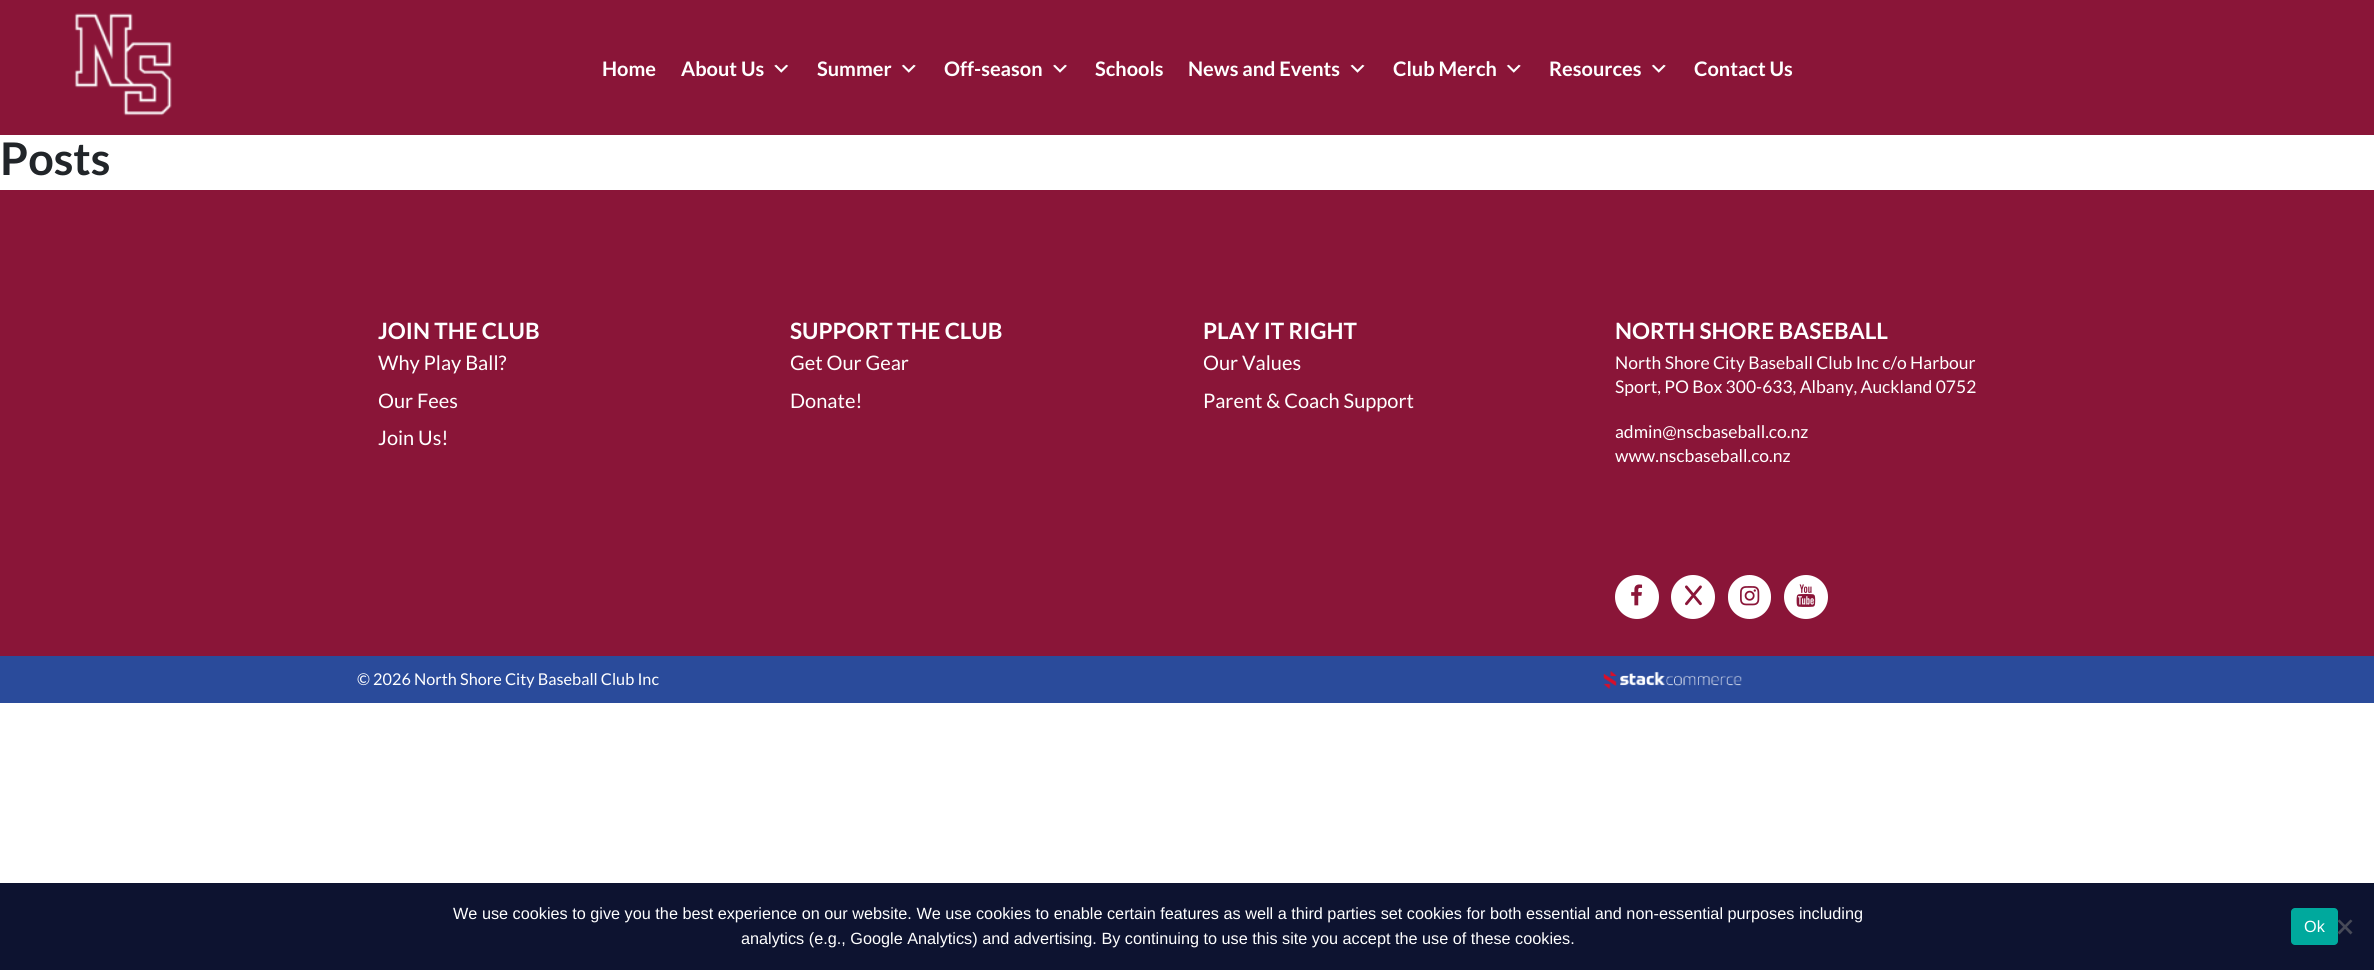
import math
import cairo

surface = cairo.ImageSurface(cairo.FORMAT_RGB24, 2374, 970)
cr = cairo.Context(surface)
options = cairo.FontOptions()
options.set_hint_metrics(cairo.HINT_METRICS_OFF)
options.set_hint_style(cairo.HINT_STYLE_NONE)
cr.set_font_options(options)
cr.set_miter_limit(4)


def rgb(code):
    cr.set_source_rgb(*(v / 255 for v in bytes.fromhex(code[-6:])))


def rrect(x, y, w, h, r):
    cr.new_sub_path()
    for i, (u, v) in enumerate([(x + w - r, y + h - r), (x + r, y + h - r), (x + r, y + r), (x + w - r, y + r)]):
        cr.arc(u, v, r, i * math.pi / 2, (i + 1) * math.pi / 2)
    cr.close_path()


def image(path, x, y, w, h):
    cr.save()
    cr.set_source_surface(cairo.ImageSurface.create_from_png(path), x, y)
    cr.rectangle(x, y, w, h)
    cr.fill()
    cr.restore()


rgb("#ffffff")
cr.paint()
rgb("#8a1538")
cr.rectangle(0, 0, 2374, 135)
cr.fill()
image("img/1.png", 74, 13, 98, 103)
image("img/2.png", 774, 64, 15, 9)
image("img/3.png", 901, 64, 15, 9)
image("img/4.png", 1053, 64, 14, 9)
image("img/5.png", 1350, 64, 15, 9)
image("img/3.png", 1506, 64, 15, 9)
image("img/3.png", 1651, 64, 15, 9)
cr.rectangle(0, 190, 2374, 466)
cr.fill()
rgb("#ffffff")
cr.arc(1637, 597, 20.5, 0, 2 * math.pi)
cr.fill_preserve()
cr.set_line_width(3)
cr.stroke()
image("img/6.png", 1631, 584, 12, 22)
cr.arc(1693, 597, 20.5, 0, 2 * math.pi)
cr.fill_preserve()
cr.stroke()
image("img/7.png", 1685, 585, 17, 21)
rrect(1729.5, 576.5, 40, 41, 20)
cr.fill_preserve()
cr.stroke()
image("img/8.png", 1740, 586, 20, 20)
cr.arc(1806, 597, 20.5, 0, 2 * math.pi)
cr.fill_preserve()
cr.stroke()
image("img/9.png", 1796, 584, 20, 23)
rgb("#2a4b9b")
cr.rectangle(0, 656, 2374, 47)
cr.fill()
image("img/10.png", 1603, 671, 139, 18)
rgb("#0d1330")
cr.rectangle(0, 883, 2374, 87)
cr.fill()
rgb("#00a99d")
rrect(2291, 908, 47, 37, 4)
cr.fill()
rgb("#474a58")
cr.new_path()
cr.move_to(2350.5, 919.5)
cr.line_to(2352.5, 921)
cr.line_to(2339.5, 934.5)
cr.line_to(2337.5, 932.5)
cr.close_path()
cr.fill()
cr.new_path()
cr.move_to(2337.5, 921)
cr.line_to(2339.5, 919.5)
cr.line_to(2352.5, 932.5)
cr.line_to(2350.5, 934.5)
cr.close_path()
cr.fill()
cr.select_font_face("Lato", cairo.FONT_SLANT_NORMAL, cairo.FONT_WEIGHT_BOLD)
cr.set_font_size(20)
rgb("#ffffff")
for x, y, s in [
    (602, 76, "Home"),
    (681, 76, "About Us"),
    (817, 76, "Summer"),
    (944, 76, "Off-season"),
    (1095, 76, "Schools"),
    (1188, 76, "News and Events"),
    (1393, 76, "Club Merch"),
    (1549, 76, "Resources"),
    (1694, 76, "Contact Us"),
]:
    cr.move_to(x, y)
    cr.show_text(s)
cr.set_font_size(45)
rgb("#212529")
cr.move_to(0, 175)
cr.show_text("Posts")
cr.set_font_size(22.5)
rgb("#ffffff")
cr.move_to(378, 339)
cr.show_text("JOIN THE CLUB")
cr.select_font_face("Lato")
cr.set_font_size(20)
for x, y, s in [
    (378, 370, "Why Play Ball?"),
    (378, 408, "Our Fees"),
    (378, 445, "Join Us!"),
]:
    cr.move_to(x, y)
    cr.show_text(s)
cr.select_font_face("Lato", cairo.FONT_SLANT_NORMAL, cairo.FONT_WEIGHT_BOLD)
cr.set_font_size(22.5)
cr.move_to(790, 339)
cr.show_text("SUPPORT THE CLUB")
cr.select_font_face("Lato")
cr.set_font_size(20)
cr.move_to(790, 370)
cr.show_text("Get Our Gear")
cr.move_to(790, 408)
cr.show_text("Donate!")
cr.select_font_face("Lato", cairo.FONT_SLANT_NORMAL, cairo.FONT_WEIGHT_BOLD)
cr.set_font_size(22.5)
cr.move_to(1203, 339)
cr.show_text("PLAY IT RIGHT")
cr.select_font_face("Lato")
cr.set_font_size(20)
cr.move_to(1203, 370)
cr.show_text("Our Values")
cr.move_to(1203, 408)
cr.show_text("Parent & Coach Support")
cr.select_font_face("Lato", cairo.FONT_SLANT_NORMAL, cairo.FONT_WEIGHT_BOLD)
cr.set_font_size(22.5)
cr.move_to(1615, 339)
cr.show_text("NORTH SHORE BASEBALL")
cr.select_font_face("Lato")
cr.set_font_size(17.5)
for x, y, s in [
    (1615, 369, "North Shore City Baseball Club Inc c/o Harbour"),
    (1615, 393, "Sport, PO Box 300-633, Albany, Auckland 0752"),
    (1615, 438, "admin@nscbaseball.co.nz"),
    (1615, 462, "www.nscbaseball.co.nz"),
]:
    cr.move_to(x, y)
    cr.show_text(s)
cr.set_font_size(16.25)
cr.move_to(357, 685)
cr.show_text("© 2026 North Shore City Baseball Club Inc")
cr.select_font_face("Liberation Sans")
for x, y, s in [
    (453, 919, "We use cookies to give you the best experience on our website. We use cookies to enable certain features as well a third parties set cookies for both essential and non-essential purposes including"),
    (741, 944, "analytics (e.g., Google Analytics) and advertising. By continuing to use this site you accept the use of these cookies."),
    (2304, 932, "Ok"),
]:
    cr.move_to(x, y)
    cr.show_text(s)
surface.write_to_png("page.png")
